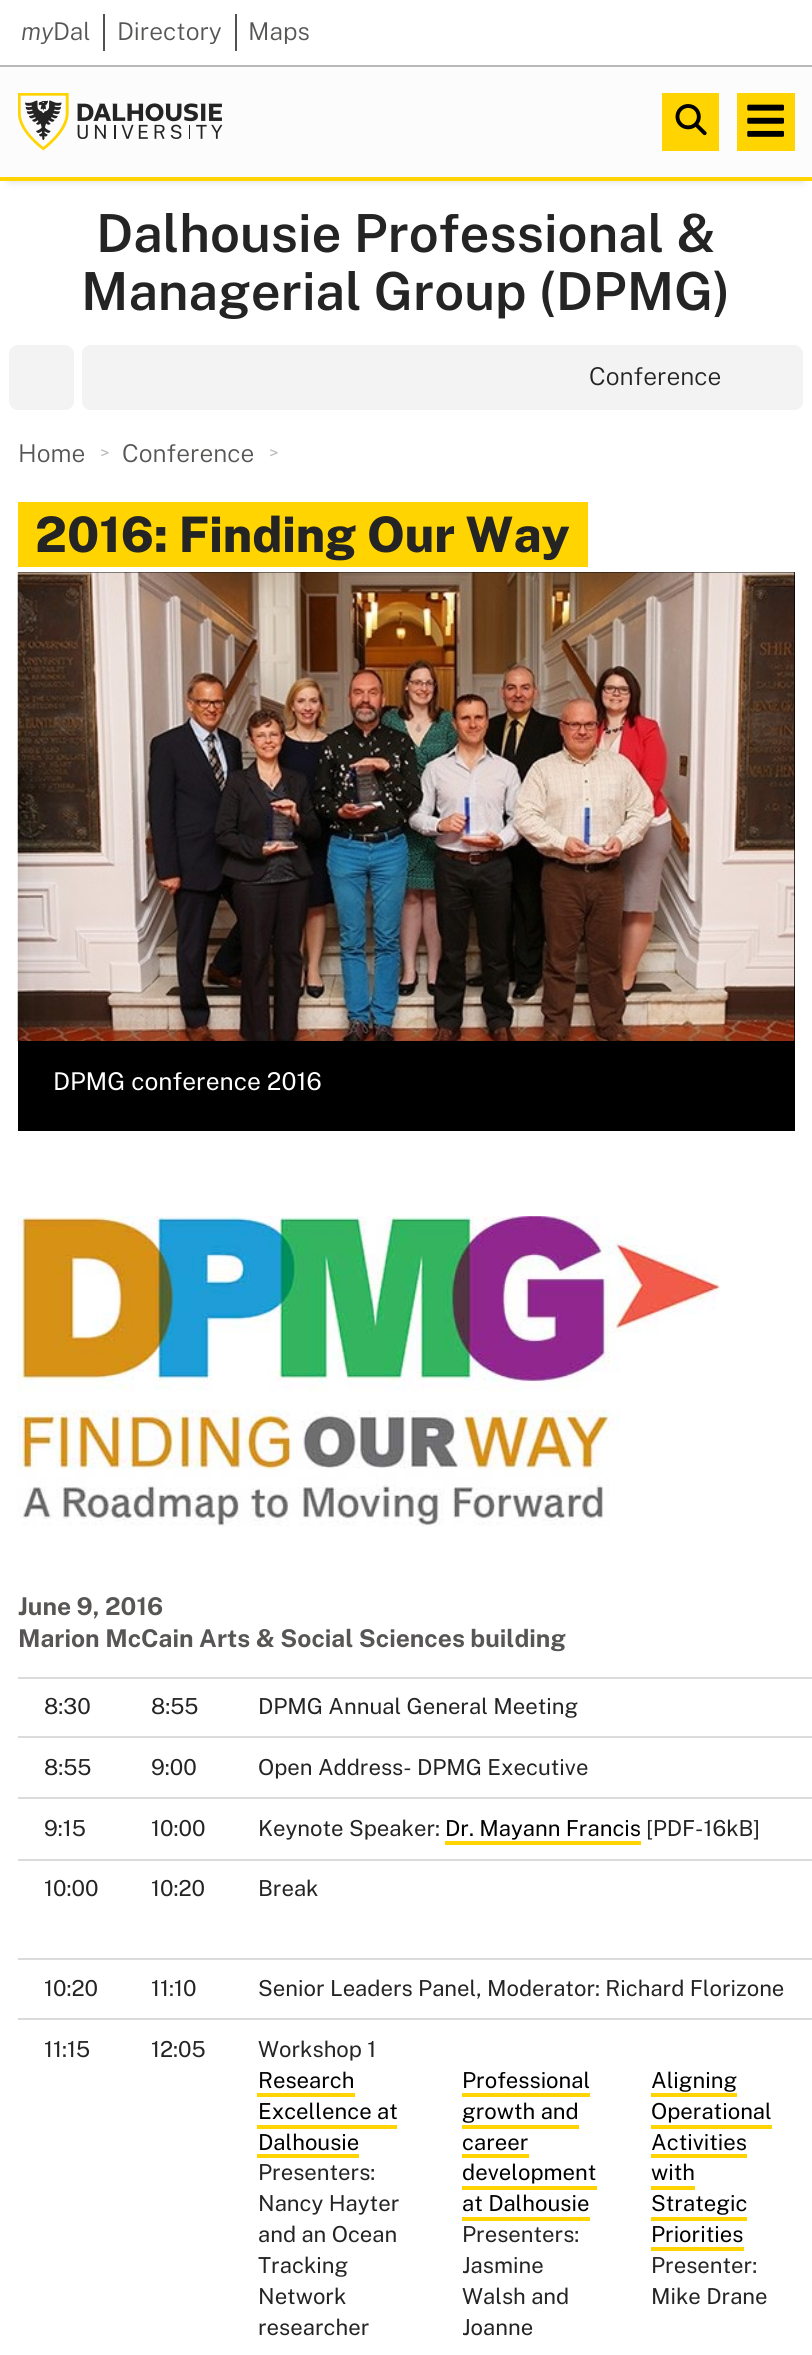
import math
import cairo

surface = cairo.ImageSurface(cairo.FORMAT_RGB24, 812, 2355)
cr = cairo.Context(surface)
options = cairo.FontOptions()
options.set_hint_metrics(cairo.HINT_METRICS_OFF)
options.set_hint_style(cairo.HINT_STYLE_NONE)
cr.set_font_options(options)
cr.set_miter_limit(4)


def rgb(code):
    cr.set_source_rgb(*(v / 255 for v in bytes.fromhex(code[-6:])))


def rrect(x, y, w, h, r):
    cr.new_sub_path()
    for i, (u, v) in enumerate([(x + w - r, y + h - r), (x + r, y + h - r), (x + r, y + r), (x + w - r, y + r)]):
        cr.arc(u, v, r, i * math.pi / 2, (i + 1) * math.pi / 2)
    cr.close_path()


def soft_shadow(x, y, w, h, r, blur, alpha):
    cr.push_group_with_content(cairo.CONTENT_ALPHA)
    cr.set_operator(cairo.OPERATOR_SOURCE)
    for i in range(15, -16, -2):
        e = blur * i / 6
        if min(w, h) + 2 * e > 0:
            cr.set_source_rgba(0, 0, 0, alpha * math.erfc((i - 1) / 8.5) / 2)
            rrect(x - e, y - e, w + 2 * e, h + 2 * e, max(0, min(r + e + blur * .6, min(w, h) / 2 + e)))
            cr.fill()
    cr.mask(cr.pop_group())


def image(path, x, y, w, h):
    cr.save()
    cr.set_source_surface(cairo.ImageSurface.create_from_png(path), x, y)
    cr.rectangle(x, y, w, h)
    cr.fill()
    cr.restore()


rgb("#ffffff")
cr.paint()
for x, y, w, h, color in [
    (0, 65, 812, 2, "#b9b9b9"),
    (103, 14, 2, 37, "#52514f"),
    (235, 14, 2, 37, "#52514f"),
]:
    rgb(color)
    cr.rectangle(x, y, w, h)
    cr.fill()
rgb("#000000")
soft_shadow(9, 84, 794, 96, 0, 4.5, 0.2)
rgb("#fcfcfc")
cr.rectangle(0, 67, 812, 110)
cr.fill()
rgb("#ffd400")
cr.rectangle(0, 177, 812, 4)
cr.fill()
image("img/1.png", 18, 93, 205, 58)
cr.rectangle(662, 93, 57, 58)
cr.fill()
image("img/2.png", 675, 104, 32, 32)
cr.rectangle(737, 93, 58, 58)
cr.fill()
image("img/3.png", 747, 104, 37, 33)
rgb("#f3f3f3")
rrect(9, 345, 65, 65, 9)
cr.fill()
rrect(82, 345, 721, 65, 9)
cr.fill()
rrect(83, 346, 719, 63, 8)
cr.stroke()
rgb("#ffd400")
cr.rectangle(18, 502, 570, 65)
cr.fill()
rgb("#000000")
cr.rectangle(18, 572, 777, 469)
cr.fill()
image("img/4.png", 17, 572, 778, 470)
cr.rectangle(18, 1041, 777, 90)
cr.fill()
image("img/5.png", 17, 1216, 703, 310)
for x, y, w, h, color in [
    (18, 1677, 794, 2, "#dbdbdb"),
    (18, 1736, 794, 2, "#dbdbdb"),
    (18, 1797, 794, 2, "#dbdbdb"),
    (18, 1859, 794, 2, "#dbdbdb"),
    (445, 1841, 196, 4, "#ffd400"),
    (18, 1958, 794, 2, "#dbdbdb"),
    (18, 2018, 794, 2, "#dbdbdb"),
    (257, 2093, 98, 4, "#ffd400"),
    (257, 2125, 140, 4, "#ffd400"),
    (257, 2154, 102, 4, "#ffd400"),
    (462, 2093, 128, 4, "#ffd400"),
    (462, 2125, 117, 4, "#ffd400"),
    (462, 2154, 67, 4, "#ffd400"),
    (462, 2186, 135, 4, "#ffd400"),
    (462, 2217, 128, 4, "#ffd400"),
    (651, 2093, 86, 4, "#ffd400"),
    (651, 2125, 121, 4, "#ffd400"),
    (651, 2154, 96, 4, "#ffd400"),
    (651, 2186, 44, 4, "#ffd400"),
    (651, 2217, 96, 4, "#ffd400"),
    (651, 2247, 93, 4, "#ffd400"),
]:
    rgb(color)
    cr.rectangle(x, y, w, h)
    cr.fill()
cr.select_font_face("Public Sans Light", cairo.FONT_SLANT_ITALIC)
cr.set_font_size(24.5)
rgb("#575655")
cr.move_to(21, 40)
cr.show_text("my")
cr.select_font_face("Public Sans Light")
for x, y, s in [
    (53, 40, "Dal"),
    (117, 40, "Directory"),
    (248, 40, "Maps"),
]:
    cr.move_to(x, y)
    cr.show_text(s)
cr.select_font_face("Public Sans SemiBold")
cr.set_font_size(52.5)
rgb("#242424")
cr.move_to(96, 252)
cr.show_text("Dalhousie Professional &")
cr.move_to(81, 310)
cr.show_text("Managerial Group (DPMG)")
cr.select_font_face("Public Sans Light")
cr.set_font_size(24.5)
cr.move_to(589, 385)
cr.show_text("Conference")
rgb("#575655")
cr.move_to(18, 462)
cr.show_text("Home")
cr.set_font_size(18)
rgb("#b9b9b9")
cr.move_to(100, 459)
cr.show_text(">")
cr.set_font_size(24.5)
rgb("#575655")
cr.move_to(122, 462)
cr.show_text("Conference")
cr.set_font_size(18)
rgb("#b9b9b9")
cr.move_to(269, 459)
cr.show_text(">")
cr.select_font_face("Public Sans ExtraBold")
cr.set_font_size(49)
rgb("#242424")
cr.move_to(35, 552)
cr.show_text("2016: Finding Our Way")
cr.select_font_face("Public Sans")
cr.set_font_size(24.5)
rgb("#ffffff")
cr.move_to(53, 1090)
cr.show_text("DPMG conference 2016")
cr.select_font_face("Public Sans", cairo.FONT_SLANT_NORMAL, cairo.FONT_WEIGHT_BOLD)
rgb("#575655")
cr.move_to(18, 1615)
cr.show_text("June 9, 2016")
cr.move_to(18, 1647)
cr.show_text("Marion McCain Arts & Social Sciences building")
cr.select_font_face("Public Sans")
cr.set_font_size(22.05)
rgb("#242424")
for x, y, s in [
    (44, 1714, "8:30"),
    (151, 1714, "8:55"),
    (258, 1714, "DPMG Annual General Meeting"),
    (44, 1775, "8:55"),
    (151, 1775, "9:00"),
    (258, 1775, "Open Address- DPMG Executive"),
    (44, 1836, "9:15"),
    (151, 1836, "10:00"),
    (258, 1836, "Keynote Speaker:"),
]:
    cr.move_to(x, y)
    cr.show_text(s)
rgb("#000000")
cr.move_to(445, 1836)
cr.show_text("Dr. Mayann Francis")
rgb("#242424")
for x, y, s in [
    (646, 1836, "[PDF-16kB]"),
    (44, 1896, "10:00"),
    (151, 1896, "10:20"),
    (258, 1896, "Break"),
    (44, 1996, "10:20"),
    (151, 1996, "11:10"),
    (258, 1996, "Senior Leaders Panel, Moderator: Richard Florizone"),
    (44, 2057, "11:15"),
    (151, 2057, "12:05"),
    (258, 2057, "Workshop 1"),
]:
    cr.move_to(x, y)
    cr.show_text(s)
rgb("#000000")
for x, y, s in [
    (258, 2088, "Research"),
    (258, 2119, "Excellence at"),
    (258, 2150, "Dalhousie"),
]:
    cr.move_to(x, y)
    cr.show_text(s)
rgb("#242424")
for x, y, s in [
    (258, 2180, "Presenters:"),
    (258, 2211, "Nancy Hayter"),
    (258, 2242, "and an Ocean"),
    (258, 2273, "Tracking"),
    (258, 2304, "Network"),
    (258, 2335, "researcher"),
]:
    cr.move_to(x, y)
    cr.show_text(s)
rgb("#000000")
for x, y, s in [
    (462, 2088, "Professional"),
    (462, 2119, "growth and"),
    (462, 2150, "career"),
    (462, 2180, "development"),
    (462, 2211, "at Dalhousie"),
]:
    cr.move_to(x, y)
    cr.show_text(s)
rgb("#242424")
for x, y, s in [
    (462, 2242, "Presenters:"),
    (462, 2273, "Jasmine"),
    (462, 2304, "Walsh and"),
    (462, 2335, "Joanne"),
]:
    cr.move_to(x, y)
    cr.show_text(s)
rgb("#000000")
for x, y, s in [
    (651, 2088, "Aligning"),
    (651, 2119, "Operational"),
    (651, 2150, "Activities"),
    (651, 2180, "with"),
    (651, 2211, "Strategic"),
    (651, 2242, "Priorities"),
]:
    cr.move_to(x, y)
    cr.show_text(s)
rgb("#242424")
cr.move_to(651, 2273)
cr.show_text("Presenter:")
cr.move_to(651, 2304)
cr.show_text("Mike Drane")
surface.write_to_png("page.png")
